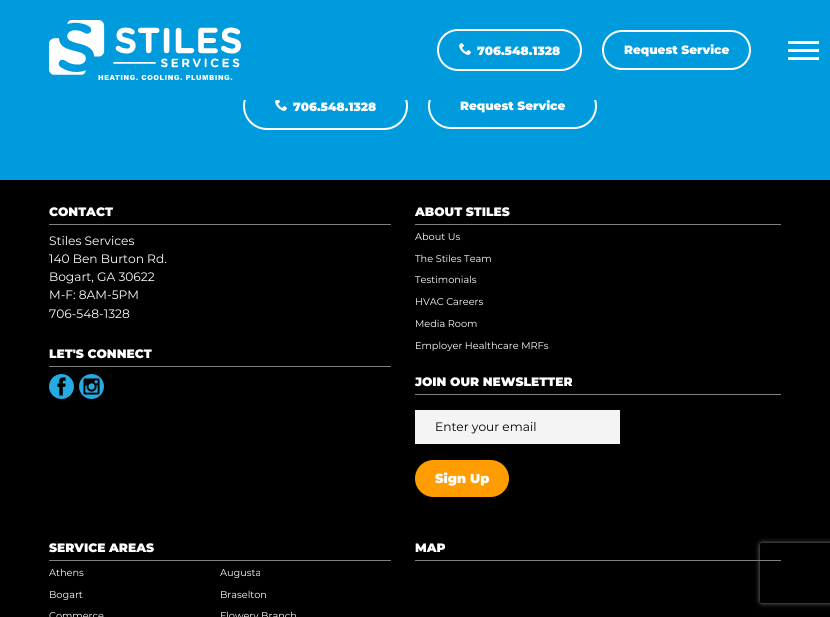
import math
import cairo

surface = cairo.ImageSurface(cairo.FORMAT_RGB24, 830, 617)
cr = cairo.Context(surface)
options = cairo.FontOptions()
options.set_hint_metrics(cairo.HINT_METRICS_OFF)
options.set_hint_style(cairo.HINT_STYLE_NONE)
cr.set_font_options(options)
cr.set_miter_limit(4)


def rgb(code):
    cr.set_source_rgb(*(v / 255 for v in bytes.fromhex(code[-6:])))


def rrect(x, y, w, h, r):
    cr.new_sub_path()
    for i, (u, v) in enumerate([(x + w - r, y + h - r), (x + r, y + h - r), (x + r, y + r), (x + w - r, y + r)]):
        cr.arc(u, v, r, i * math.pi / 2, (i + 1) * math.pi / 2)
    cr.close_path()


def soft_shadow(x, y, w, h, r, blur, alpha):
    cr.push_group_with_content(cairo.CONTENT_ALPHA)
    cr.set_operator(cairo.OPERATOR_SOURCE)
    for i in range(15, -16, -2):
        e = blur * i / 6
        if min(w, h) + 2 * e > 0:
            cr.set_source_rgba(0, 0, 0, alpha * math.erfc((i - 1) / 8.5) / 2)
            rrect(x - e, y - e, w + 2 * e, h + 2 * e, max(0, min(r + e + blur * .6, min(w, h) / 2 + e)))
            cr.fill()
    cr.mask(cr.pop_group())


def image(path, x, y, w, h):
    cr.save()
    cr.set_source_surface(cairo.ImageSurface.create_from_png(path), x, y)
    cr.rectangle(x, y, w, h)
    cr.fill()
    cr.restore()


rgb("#000000")
cr.paint()
rgb("#009bdc")
cr.rectangle(0, 100, 830, 80)
cr.fill()
rrect(244, 83, 163, 46, 23)
rgb("#ffffff")
cr.stroke()
rrect(429, 84, 167, 44, 22)
cr.stroke()
rgb("#009bdc")
cr.rectangle(0, 0, 830, 100)
cr.fill()
image("img/1.png", 49, 20, 192, 60)
rrect(438, 30, 143, 40, 20)
rgb("#ffffff")
cr.stroke()
image("img/2.png", 459, 43, 12, 12)
rrect(603, 31, 147, 38, 19)
cr.stroke()
image("img/3.png", 275, 100, 12, 11)
rgb("#808080")
cr.rectangle(49, 224, 342, 1)
cr.fill()
cr.rectangle(49, 366, 342, 1)
cr.fill()
image("img/4.png", 49, 374, 25, 25)
image("img/5.png", 79, 374, 25, 25)
for x, y, w, h, color in [
    (415, 224, 366, 1, "#808080"),
    (415, 394, 366, 1, "#808080"),
    (415, 410, 205, 34, "#f4f4f4"),
    (415, 560, 366, 1, "#808080"),
]:
    rgb(color)
    cr.rectangle(x, y, w, h)
    cr.fill()
cr.save()
cr.set_fill_rule(cairo.FILL_RULE_EVEN_ODD)
cr.new_path()
cr.move_to(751, 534)
cr.line_to(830, 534)
cr.line_to(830, 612)
cr.line_to(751, 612)
cr.close_path()
cr.move_to(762, 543)
cr.line_to(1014, 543)
cr.curve_to(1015, 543, 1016, 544, 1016, 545)
cr.line_to(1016, 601)
cr.curve_to(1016, 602, 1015, 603, 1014, 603)
cr.line_to(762, 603)
cr.curve_to(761, 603, 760, 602, 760, 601)
cr.line_to(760, 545)
cr.curve_to(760, 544, 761, 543, 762, 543)
cr.close_path()
cr.clip()
rgb("#808080")
soft_shadow(760, 543, 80, 60, 2, 2.5, 1)
cr.restore()
rgb("#ff9d00")
rrect(415, 460, 94, 37, 18.5)
cr.fill()
for x, y, w, h, color in [
    (49, 560, 342, 1, "#808080"),
    (788, 49, 31, 3, "#ffffff"),
    (788, 41, 31, 3, "#ffffff"),
    (788, 57, 31, 3, "#ffffff"),
]:
    rgb(color)
    cr.rectangle(x, y, w, h)
    cr.fill()
cr.select_font_face("Montserrat Black")
cr.set_font_size(12)
for x, y, s in [
    (477, 55, "706.548.1328"),
    (624, 54, "Request Service"),
    (293, 111, "706.548.1328"),
    (460, 110, "Request Service"),
]:
    cr.move_to(x, y)
    cr.show_text(s)
cr.set_font_size(12.2)
cr.move_to(49, 216)
cr.show_text("CONTACT")
cr.select_font_face("Montserrat")
for x, y, s in [
    (49, 245, "Stiles Services"),
    (49, 263, "140 Ben Burton Rd."),
    (49, 281, "Bogart, GA 30622"),
    (49, 299, "M-F: 8AM-5PM"),
    (49, 318, "706-548-1328"),
]:
    cr.move_to(x, y)
    cr.show_text(s)
cr.select_font_face("Montserrat Black")
cr.move_to(49, 358)
cr.show_text("LET'S CONNECT")
cr.move_to(415, 216)
cr.show_text("ABOUT STILES")
cr.select_font_face("Montserrat")
cr.set_font_size(9.75)
for x, y, s in [
    (415, 240, "About Us"),
    (415, 262, "The Stiles Team"),
    (415, 283, "Testimonials"),
    (415, 305, "HVAC Careers"),
    (415, 327, "Media Room"),
    (415, 349, "Employer Healthcare MRFs"),
]:
    cr.move_to(x, y)
    cr.show_text(s)
cr.select_font_face("Montserrat Black")
cr.set_font_size(12.2)
cr.move_to(415, 386)
cr.show_text("JOIN OUR NEWSLETTER")
cr.select_font_face("Montserrat")
rgb("#000000")
cr.move_to(435, 431)
cr.show_text("Enter your email")
cr.select_font_face("Montserrat Black")
cr.set_font_size(13)
rgb("#ffffff")
cr.move_to(435, 483)
cr.show_text("Sign Up")
cr.set_font_size(12.2)
cr.move_to(49, 552)
cr.show_text("SERVICE AREAS")
cr.select_font_face("Montserrat")
cr.set_font_size(9.75)
for x, y, s in [
    (49, 576, "Athens"),
    (220, 576, "Augusta"),
    (49, 598, "Bogart"),
    (220, 598, "Braselton"),
    (49, 619, "Commerce"),
    (220, 619, "Flowery Branch"),
]:
    cr.move_to(x, y)
    cr.show_text(s)
cr.select_font_face("Montserrat Black")
cr.set_font_size(12.2)
cr.move_to(415, 552)
cr.show_text("MAP")
surface.write_to_png("page.png")
